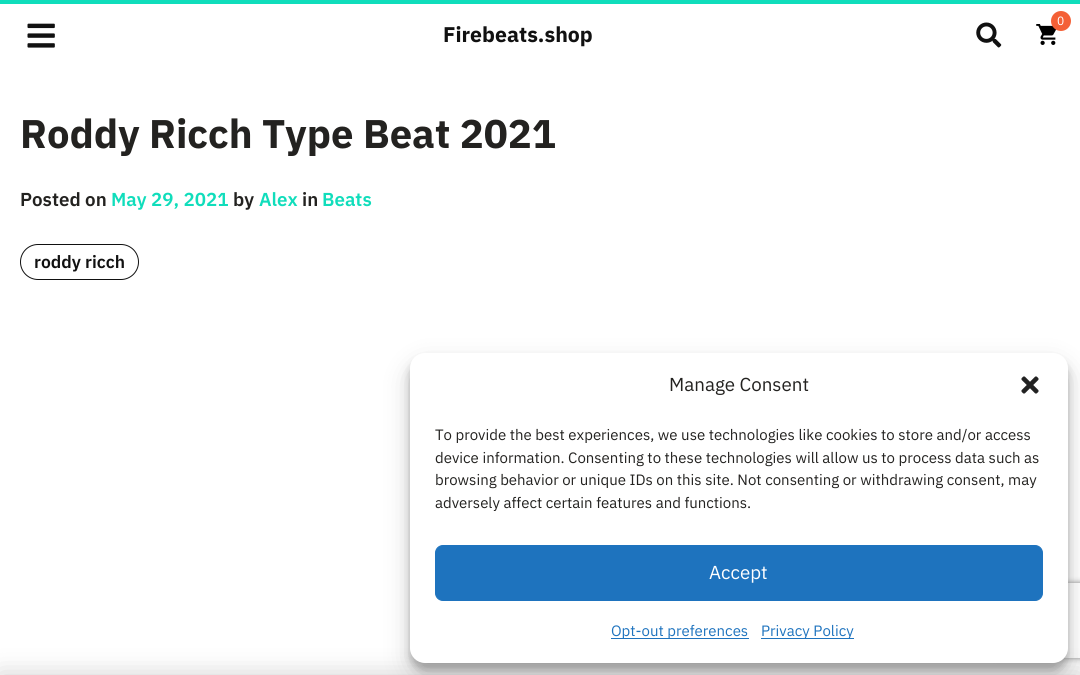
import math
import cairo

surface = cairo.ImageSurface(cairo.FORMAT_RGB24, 1080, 675)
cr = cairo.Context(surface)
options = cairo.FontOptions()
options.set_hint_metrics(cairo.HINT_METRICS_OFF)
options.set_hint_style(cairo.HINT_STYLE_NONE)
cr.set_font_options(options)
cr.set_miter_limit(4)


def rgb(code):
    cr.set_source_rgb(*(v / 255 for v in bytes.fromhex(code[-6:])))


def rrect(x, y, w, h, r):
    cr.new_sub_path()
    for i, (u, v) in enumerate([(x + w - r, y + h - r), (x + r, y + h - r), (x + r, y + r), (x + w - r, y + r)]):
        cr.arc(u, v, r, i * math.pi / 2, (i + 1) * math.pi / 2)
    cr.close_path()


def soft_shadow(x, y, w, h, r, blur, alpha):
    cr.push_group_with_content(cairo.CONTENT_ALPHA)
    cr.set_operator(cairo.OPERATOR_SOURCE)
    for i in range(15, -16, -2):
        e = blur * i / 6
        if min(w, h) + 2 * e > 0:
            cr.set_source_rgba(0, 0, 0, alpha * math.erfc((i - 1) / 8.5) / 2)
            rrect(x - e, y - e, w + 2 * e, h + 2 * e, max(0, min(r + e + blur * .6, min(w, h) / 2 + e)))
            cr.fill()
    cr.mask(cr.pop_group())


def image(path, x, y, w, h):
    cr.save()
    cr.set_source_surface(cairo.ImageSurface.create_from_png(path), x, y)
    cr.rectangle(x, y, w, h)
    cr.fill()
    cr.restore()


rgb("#ffffff")
cr.paint()
rgb("#10ddbb")
cr.rectangle(0, 0, 1080, 4)
cr.fill()
image("img/1.png", 1036, 24, 21, 21)
rgb("#f46036")
cr.arc(1061, 21, 10, 0, 2 * math.pi)
cr.fill()
image("img/2.png", 976, 22, 26, 26)
image("img/3.png", 27, 23, 28, 25)
rrect(20.5, 244.5, 118, 35, 17.5)
rgb("#111111")
cr.set_line_width(1)
cr.stroke()
rgb("#292828")
soft_shadow(0, 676, 1080, 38, 0, 13, 0.24)
rgb("#000000")
soft_shadow(410, 360, 658, 310, 15, 4, 0.23)
soft_shadow(410, 365, 658, 310, 15, 12.5, 0.19)
cr.save()
cr.set_fill_rule(cairo.FILL_RULE_EVEN_ODD)
cr.new_path()
cr.move_to(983, 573)
cr.line_to(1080, 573)
cr.line_to(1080, 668)
cr.line_to(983, 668)
cr.close_path()
cr.move_to(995.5, 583)
cr.line_to(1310.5, 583)
cr.curve_to(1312, 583, 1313, 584, 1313, 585.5)
cr.line_to(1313, 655.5)
cr.curve_to(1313, 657, 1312, 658, 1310.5, 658)
cr.line_to(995.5, 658)
cr.curve_to(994, 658, 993, 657, 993, 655.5)
cr.line_to(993, 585.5)
cr.curve_to(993, 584, 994, 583, 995.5, 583)
cr.close_path()
cr.clip()
rgb("#808080")
soft_shadow(993, 583, 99, 75, 2.5, 3, 1)
cr.restore()
rgb("#ffffff")
rrect(410, 353, 658, 310, 15)
cr.fill()
image("img/4.png", 1021, 376, 18, 18)
rgb("#1e73be")
rrect(435.5, 545.5, 607, 55, 7.5)
cr.fill_preserve()
cr.stroke()
cr.rectangle(611, 638, 138, 1)
cr.fill()
cr.rectangle(761, 638, 93, 1)
cr.fill()
cr.select_font_face("IBM Plex Sans")
cr.set_font_size(12)
rgb("#ffffff")
cr.move_to(1057, 25)
cr.show_text("0")
cr.select_font_face("IBM Plex Sans", cairo.FONT_SLANT_NORMAL, cairo.FONT_WEIGHT_BOLD)
cr.set_font_size(21.25)
rgb("#111111")
cr.move_to(443, 42)
cr.show_text("Firebeats.shop")
cr.set_font_size(40)
rgb("#232220")
cr.move_to(20, 148)
cr.show_text("Roddy Ricch Type Beat 2021")
cr.select_font_face("IBM Plex Sans SemiBold")
cr.set_font_size(18.75)
cr.move_to(20, 206)
cr.show_text("Posted on")
rgb("#10ddbb")
cr.move_to(111, 206)
cr.show_text("May 29, 2021")
rgb("#232220")
cr.move_to(233, 206)
cr.show_text("by")
rgb("#10ddbb")
cr.move_to(259, 206)
cr.show_text("Alex")
rgb("#232220")
cr.move_to(302, 206)
cr.show_text("in")
rgb("#10ddbb")
cr.move_to(322, 206)
cr.show_text("Beats")
cr.set_font_size(17.5)
rgb("#111111")
cr.move_to(34, 268)
cr.show_text("roddy ricch")
cr.select_font_face("IBM Plex Sans")
cr.set_font_size(18.75)
rgb("#232220")
cr.move_to(669, 391)
cr.show_text("Manage Consent")
cr.set_font_size(15)
for x, y, s in [
    (435, 440, "To provide the best experiences, we use technologies like cookies to store and/or access"),
    (435, 463, "device information. Consenting to these technologies will allow us to process data such as"),
    (435, 485, "browsing behavior or unique IDs on this site. Not consenting or withdrawing consent, may"),
    (435, 508, "adversely affect certain features and functions."),
]:
    cr.move_to(x, y)
    cr.show_text(s)
cr.set_font_size(18.75)
rgb("#ffffff")
cr.move_to(709, 579)
cr.show_text("Accept")
cr.set_font_size(15)
rgb("#1e73be")
cr.move_to(611, 636)
cr.show_text("Opt-out preferences")
cr.move_to(761, 636)
cr.show_text("Privacy Policy")
surface.write_to_png("page.png")
